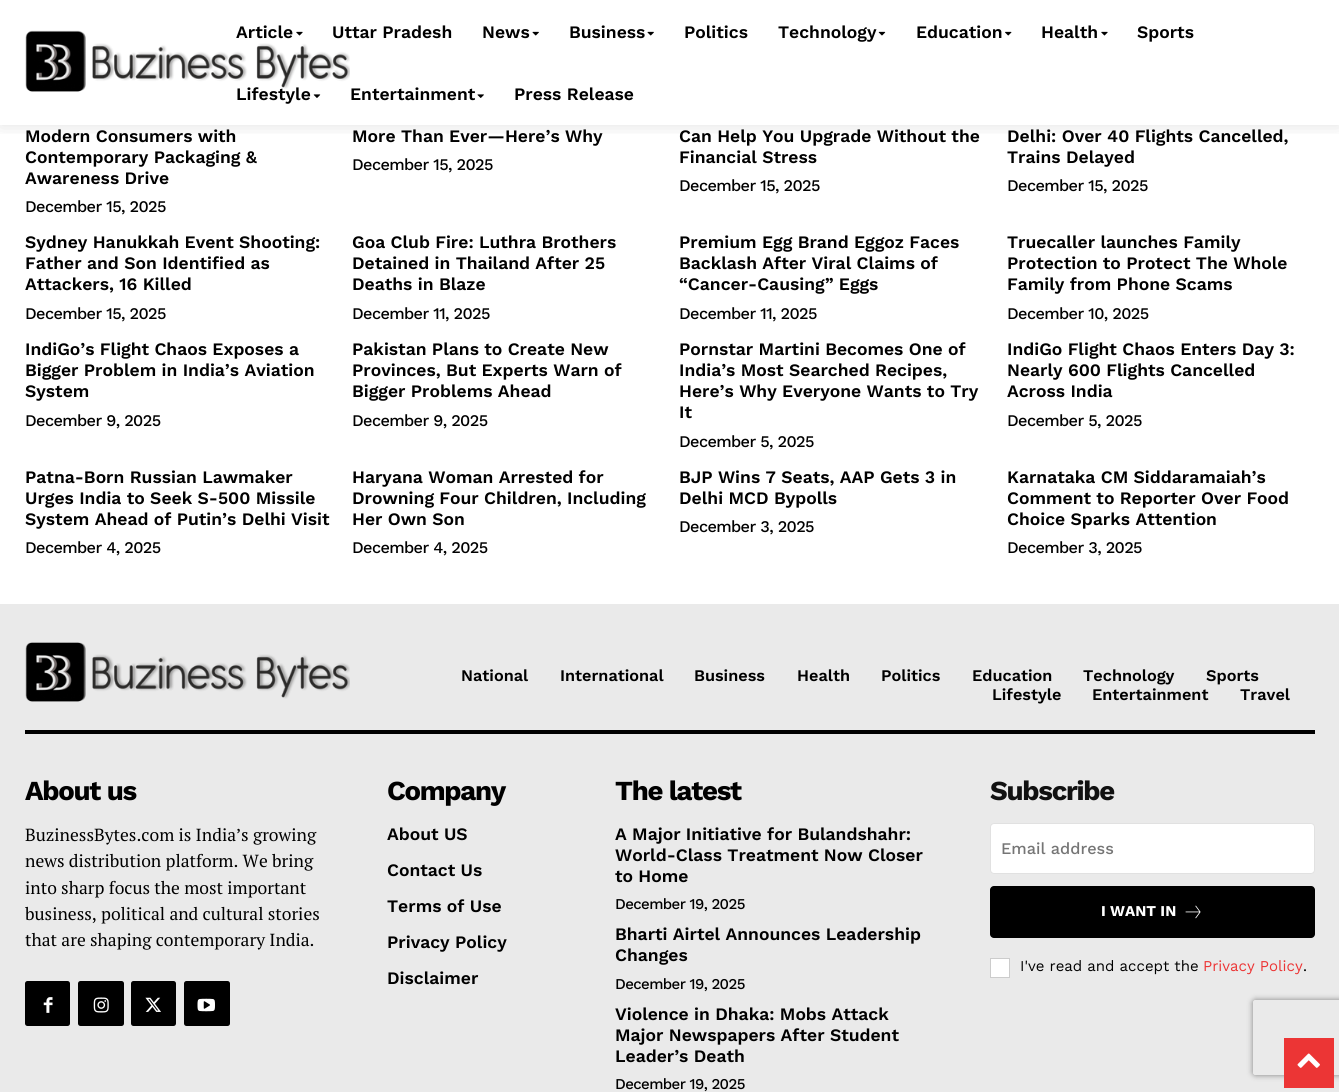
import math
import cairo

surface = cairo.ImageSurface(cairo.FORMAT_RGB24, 1339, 1092)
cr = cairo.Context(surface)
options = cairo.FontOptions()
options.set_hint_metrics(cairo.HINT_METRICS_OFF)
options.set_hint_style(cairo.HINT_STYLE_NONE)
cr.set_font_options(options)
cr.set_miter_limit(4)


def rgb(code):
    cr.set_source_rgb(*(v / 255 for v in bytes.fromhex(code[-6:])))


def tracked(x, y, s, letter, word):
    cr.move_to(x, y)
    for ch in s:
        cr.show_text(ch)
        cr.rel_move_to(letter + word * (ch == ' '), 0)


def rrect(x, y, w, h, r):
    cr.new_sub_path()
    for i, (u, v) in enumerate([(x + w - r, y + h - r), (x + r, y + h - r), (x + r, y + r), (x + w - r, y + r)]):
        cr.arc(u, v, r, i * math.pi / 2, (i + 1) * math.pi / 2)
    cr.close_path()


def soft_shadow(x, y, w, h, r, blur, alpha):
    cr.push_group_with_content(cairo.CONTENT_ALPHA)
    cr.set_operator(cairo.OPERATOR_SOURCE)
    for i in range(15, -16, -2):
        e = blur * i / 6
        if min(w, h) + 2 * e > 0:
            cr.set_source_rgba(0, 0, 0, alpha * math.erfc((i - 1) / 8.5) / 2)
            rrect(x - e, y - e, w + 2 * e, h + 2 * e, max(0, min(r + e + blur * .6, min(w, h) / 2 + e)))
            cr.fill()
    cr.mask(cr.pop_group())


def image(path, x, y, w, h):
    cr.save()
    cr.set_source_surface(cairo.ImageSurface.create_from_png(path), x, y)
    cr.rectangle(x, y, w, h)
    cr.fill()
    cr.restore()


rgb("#ffffff")
cr.paint()
image("img/1.png", 25, 30, 325, 62)
image("img/2.png", 296, 31, 7, 5)
image("img/3.png", 532, 31, 7, 5)
image("img/3.png", 647, 31, 7, 5)
image("img/4.png", 878, 31, 8, 5)
image("img/5.png", 1005, 31, 7, 5)
image("img/2.png", 1101, 31, 7, 5)
image("img/6.png", 313, 94, 8, 4)
image("img/7.png", 477, 94, 7, 4)
cr.save()
cr.rectangle(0, 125, 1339, 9)
cr.clip()
rgb("#000000")
soft_shadow(0, 0, 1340, 125, 0, 9.5, 0.12)
cr.restore()
rgb("#eaeaea")
cr.rectangle(0, 604, 1339, 488)
cr.fill()
rgb("#000000")
cr.rectangle(25, 730, 1290, 4)
cr.fill()
image("img/8.png", 25, 642, 325, 60)
rrect(25, 981, 45, 45, 2.5)
cr.fill()
image("img/9.png", 43, 997, 10, 16)
rrect(78, 981, 46, 45, 2.5)
cr.fill()
image("img/10.png", 93, 997, 16, 16)
rrect(131, 981, 45, 45, 2.5)
cr.fill()
image("img/11.png", 145, 997, 16, 15)
rrect(184, 981, 46, 45, 2.5)
cr.fill()
image("img/12.png", 197, 998, 18, 14)
rgb("#ffffff")
rrect(990.5, 823.5, 324, 50, 3.5)
cr.fill_preserve()
rgb("#e1e1e1")
cr.set_line_width(1)
cr.stroke()
rgb("#000000")
rrect(990, 886, 325, 52, 4)
cr.fill()
image("img/13.png", 1185, 905, 16, 14)
rgb("#ffffff")
cr.rectangle(990.5, 958.5, 19, 19)
cr.fill_preserve()
rgb("#cccccc")
cr.stroke()
cr.save()
cr.set_fill_rule(cairo.FILL_RULE_EVEN_ODD)
cr.new_path()
cr.move_to(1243, 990)
cr.line_to(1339, 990)
cr.line_to(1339, 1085)
cr.line_to(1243, 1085)
cr.close_path()
cr.move_to(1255.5, 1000)
cr.line_to(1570.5, 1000)
cr.curve_to(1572, 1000, 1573, 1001, 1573, 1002.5)
cr.line_to(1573, 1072.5)
cr.curve_to(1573, 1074, 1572, 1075, 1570.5, 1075)
cr.line_to(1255.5, 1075)
cr.curve_to(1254, 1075, 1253, 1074, 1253, 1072.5)
cr.line_to(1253, 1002.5)
cr.curve_to(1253, 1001, 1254, 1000, 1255.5, 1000)
cr.close_path()
cr.clip()
rgb("#808080")
soft_shadow(1253, 1000, 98, 75, 2.5, 3, 1)
cr.restore()
rgb("#ec3535")
cr.rectangle(1284, 1038, 50, 50)
cr.fill()
image("img/14.png", 1297, 1053, 23, 15)
cr.select_font_face("Work Sans SemiBold")
cr.set_font_size(17.5)
rgb("#000000")
for x, y, s in [
    (236, 38, "Article"),
    (332, 38, "Uttar Pradesh"),
    (482, 38, "News"),
    (569, 38, "Business"),
    (684, 38, "Politics"),
    (778, 38, "Technology"),
    (916, 38, "Education"),
    (1041, 38, "Health"),
    (1137, 38, "Sports"),
    (236, 100, "Lifestyle"),
    (350, 100, "Entertainment"),
    (514, 100, "Press Release"),
    (25, 142, "Modern Consumers with"),
    (25, 163, "Contemporary Packaging &"),
    (25, 184, "Awareness Drive"),
]:
    cr.move_to(x, y)
    cr.show_text(s)
cr.select_font_face("Work Sans Medium")
cr.set_font_size(16.25)
tracked(25, 212, "December 15, 2025", -0.6, 0)
cr.select_font_face("Work Sans SemiBold")
cr.set_font_size(17.5)
cr.move_to(352, 142)
cr.show_text("More Than Ever—Here’s Why")
cr.select_font_face("Work Sans Medium")
cr.set_font_size(16.25)
tracked(352, 170, "December 15, 2025", -0.6, 0)
cr.select_font_face("Work Sans SemiBold")
cr.set_font_size(17.5)
cr.move_to(679, 142)
cr.show_text("Can Help You Upgrade Without the")
cr.move_to(679, 163)
cr.show_text("Financial Stress")
cr.select_font_face("Work Sans Medium")
cr.set_font_size(16.25)
tracked(679, 191, "December 15, 2025", -0.6, 0)
cr.select_font_face("Work Sans SemiBold")
cr.set_font_size(17.5)
cr.move_to(1007, 142)
cr.show_text("Delhi: Over 40 Flights Cancelled,")
cr.move_to(1007, 163)
cr.show_text("Trains Delayed")
cr.select_font_face("Work Sans Medium")
cr.set_font_size(16.25)
tracked(1007, 191, "December 15, 2025", -0.6, 0)
cr.select_font_face("Work Sans SemiBold")
cr.set_font_size(17.5)
for x, y, s in [
    (25, 248, "Sydney Hanukkah Event Shooting:"),
    (25, 269, "Father and Son Identified as"),
    (25, 290, "Attackers, 16 Killed"),
]:
    cr.move_to(x, y)
    cr.show_text(s)
cr.select_font_face("Work Sans Medium")
cr.set_font_size(16.25)
tracked(25, 319, "December 15, 2025", -0.6, 0)
cr.select_font_face("Work Sans SemiBold")
cr.set_font_size(17.5)
for x, y, s in [
    (352, 248, "Goa Club Fire: Luthra Brothers"),
    (352, 269, "Detained in Thailand After 25"),
    (352, 290, "Deaths in Blaze"),
]:
    cr.move_to(x, y)
    cr.show_text(s)
cr.select_font_face("Work Sans Medium")
cr.set_font_size(16.25)
tracked(352, 319, "December 11, 2025", -0.6, 0)
cr.select_font_face("Work Sans SemiBold")
cr.set_font_size(17.5)
for x, y, s in [
    (679, 248, "Premium Egg Brand Eggoz Faces"),
    (679, 269, "Backlash After Viral Claims of"),
    (679, 290, "“Cancer-Causing” Eggs"),
]:
    cr.move_to(x, y)
    cr.show_text(s)
cr.select_font_face("Work Sans Medium")
cr.set_font_size(16.25)
tracked(679, 319, "December 11, 2025", -0.6, 0)
cr.select_font_face("Work Sans SemiBold")
cr.set_font_size(17.5)
for x, y, s in [
    (1007, 248, "Truecaller launches Family"),
    (1007, 269, "Protection to Protect The Whole"),
    (1007, 290, "Family from Phone Scams"),
]:
    cr.move_to(x, y)
    cr.show_text(s)
cr.select_font_face("Work Sans Medium")
cr.set_font_size(16.25)
tracked(1007, 319, "December 10, 2025", -0.6, 0)
cr.select_font_face("Work Sans SemiBold")
cr.set_font_size(17.5)
for x, y, s in [
    (25, 355, "IndiGo’s Flight Chaos Exposes a"),
    (25, 376, "Bigger Problem in India’s Aviation"),
    (25, 397, "System"),
]:
    cr.move_to(x, y)
    cr.show_text(s)
cr.select_font_face("Work Sans Medium")
cr.set_font_size(16.25)
tracked(25, 426, "December 9, 2025", -0.6, 0)
cr.select_font_face("Work Sans SemiBold")
cr.set_font_size(17.5)
for x, y, s in [
    (352, 355, "Pakistan Plans to Create New"),
    (352, 376, "Provinces, But Experts Warn of"),
    (352, 397, "Bigger Problems Ahead"),
]:
    cr.move_to(x, y)
    cr.show_text(s)
cr.select_font_face("Work Sans Medium")
cr.set_font_size(16.25)
tracked(352, 426, "December 9, 2025", -0.6, 0)
cr.select_font_face("Work Sans SemiBold")
cr.set_font_size(17.5)
for x, y, s in [
    (679, 355, "Pornstar Martini Becomes One of"),
    (679, 376, "India’s Most Searched Recipes,"),
    (679, 397, "Here’s Why Everyone Wants to Try"),
    (679, 418, "It"),
]:
    cr.move_to(x, y)
    cr.show_text(s)
cr.select_font_face("Work Sans Medium")
cr.set_font_size(16.25)
tracked(679, 447, "December 5, 2025", -0.6, 0)
cr.select_font_face("Work Sans SemiBold")
cr.set_font_size(17.5)
for x, y, s in [
    (1007, 355, "IndiGo Flight Chaos Enters Day 3:"),
    (1007, 376, "Nearly 600 Flights Cancelled"),
    (1007, 397, "Across India"),
]:
    cr.move_to(x, y)
    cr.show_text(s)
cr.select_font_face("Work Sans Medium")
cr.set_font_size(16.25)
tracked(1007, 426, "December 5, 2025", -0.6, 0)
cr.select_font_face("Work Sans SemiBold")
cr.set_font_size(17.5)
for x, y, s in [
    (25, 483, "Patna-Born Russian Lawmaker"),
    (25, 504, "Urges India to Seek S-500 Missile"),
    (25, 525, "System Ahead of Putin’s Delhi Visit"),
]:
    cr.move_to(x, y)
    cr.show_text(s)
cr.select_font_face("Work Sans Medium")
cr.set_font_size(16.25)
tracked(25, 553, "December 4, 2025", -0.6, 0)
cr.select_font_face("Work Sans SemiBold")
cr.set_font_size(17.5)
for x, y, s in [
    (352, 483, "Haryana Woman Arrested for"),
    (352, 504, "Drowning Four Children, Including"),
    (352, 525, "Her Own Son"),
]:
    cr.move_to(x, y)
    cr.show_text(s)
cr.select_font_face("Work Sans Medium")
cr.set_font_size(16.25)
tracked(352, 553, "December 4, 2025", -0.6, 0)
cr.select_font_face("Work Sans SemiBold")
cr.set_font_size(17.5)
cr.move_to(679, 483)
cr.show_text("BJP Wins 7 Seats, AAP Gets 3 in")
cr.move_to(679, 504)
cr.show_text("Delhi MCD Bypolls")
cr.select_font_face("Work Sans Medium")
cr.set_font_size(16.25)
tracked(679, 532, "December 3, 2025", -0.6, 0)
cr.select_font_face("Work Sans SemiBold")
cr.set_font_size(17.5)
for x, y, s in [
    (1007, 483, "Karnataka CM Siddaramaiah’s"),
    (1007, 504, "Comment to Reporter Over Food"),
    (1007, 525, "Choice Sparks Attention"),
]:
    cr.move_to(x, y)
    cr.show_text(s)
cr.select_font_face("Work Sans Medium")
cr.set_font_size(16.25)
tracked(1007, 553, "December 3, 2025", -0.6, 0)
cr.select_font_face("Work Sans SemiBold")
for x, y, s in [
    (461, 681, "National"),
    (560, 681, "International"),
    (694, 681, "Business"),
    (797, 681, "Health"),
    (881, 681, "Politics"),
    (972, 681, "Education"),
    (1083, 681, "Technology"),
    (1206, 681, "Sports"),
    (992, 700, "Lifestyle"),
    (1092, 700, "Entertainment"),
    (1240, 700, "Travel"),
]:
    cr.move_to(x, y)
    cr.show_text(s)
cr.select_font_face("Work Sans", cairo.FONT_SLANT_NORMAL, cairo.FONT_WEIGHT_BOLD)
cr.set_font_size(27.5)
tracked(25, 800, "About us", -1.25, 0)
cr.select_font_face("PT Serif")
cr.set_font_size(17.5)
for x, y, s in [
    (25, 841, "BuzinessBytes.com is India’s growing"),
    (25, 867, "news distribution platform. We bring"),
    (25, 894, "into sharp focus the most important"),
    (25, 920, "business, political and cultural stories"),
    (25, 946, "that are shaping contemporary India."),
]:
    cr.move_to(x, y)
    cr.show_text(s)
cr.select_font_face("Work Sans", cairo.FONT_SLANT_NORMAL, cairo.FONT_WEIGHT_BOLD)
cr.set_font_size(27.5)
tracked(387, 800, "Company", -1.25, 0)
cr.select_font_face("Work Sans SemiBold")
cr.set_font_size(17.5)
for x, y, s in [
    (387, 840, "About US"),
    (387, 876, "Contact Us"),
    (387, 912, "Terms of Use"),
    (387, 948, "Privacy Policy"),
    (387, 984, "Disclaimer"),
]:
    cr.move_to(x, y)
    cr.show_text(s)
cr.select_font_face("Work Sans", cairo.FONT_SLANT_NORMAL, cairo.FONT_WEIGHT_BOLD)
cr.set_font_size(27.5)
tracked(615, 800, "The latest", -1.25, 0)
cr.select_font_face("Work Sans SemiBold")
cr.set_font_size(17.5)
for x, y, s in [
    (615, 840, "A Major Initiative for Bulandshahr:"),
    (615, 861, "World-Class Treatment Now Closer"),
    (615, 882, "to Home"),
]:
    cr.move_to(x, y)
    cr.show_text(s)
cr.select_font_face("Work Sans Medium")
cr.set_font_size(15)
tracked(615, 909, "December 19, 2025", -0.6, 0)
cr.select_font_face("Work Sans SemiBold")
cr.set_font_size(17.5)
cr.move_to(615, 940)
cr.show_text("Bharti Airtel Announces Leadership")
cr.move_to(615, 961)
cr.show_text("Changes")
cr.select_font_face("Work Sans Medium")
cr.set_font_size(15)
tracked(615, 989, "December 19, 2025", -0.6, 0)
cr.select_font_face("Work Sans SemiBold")
cr.set_font_size(17.5)
for x, y, s in [
    (615, 1020, "Violence in Dhaka: Mobs Attack"),
    (615, 1041, "Major Newspapers After Student"),
    (615, 1062, "Leader’s Death"),
]:
    cr.move_to(x, y)
    cr.show_text(s)
cr.select_font_face("Work Sans Medium")
cr.set_font_size(15)
tracked(615, 1089, "December 19, 2025", -0.6, 0)
cr.select_font_face("Work Sans", cairo.FONT_SLANT_NORMAL, cairo.FONT_WEIGHT_BOLD)
cr.set_font_size(27.5)
rgb("#111111")
tracked(990, 800, "Subscribe", -1.25, 0)
cr.select_font_face("Work Sans Medium")
cr.set_font_size(16.25)
rgb("#757575")
cr.move_to(1001, 854)
cr.show_text("Email address")
cr.select_font_face("Work Sans", cairo.FONT_SLANT_NORMAL, cairo.FONT_WEIGHT_BOLD)
cr.set_font_size(15)
rgb("#ffffff")
cr.move_to(1101, 916)
cr.show_text("I WANT IN")
cr.select_font_face("Work Sans")
rgb("#000000")
cr.move_to(1020, 971)
cr.show_text("I've read and accept the")
rgb("#ec3535")
cr.move_to(1203, 971)
cr.show_text("Privacy Policy")
rgb("#000000")
cr.move_to(1303, 971)
cr.show_text(".")
surface.write_to_png("page.png")
